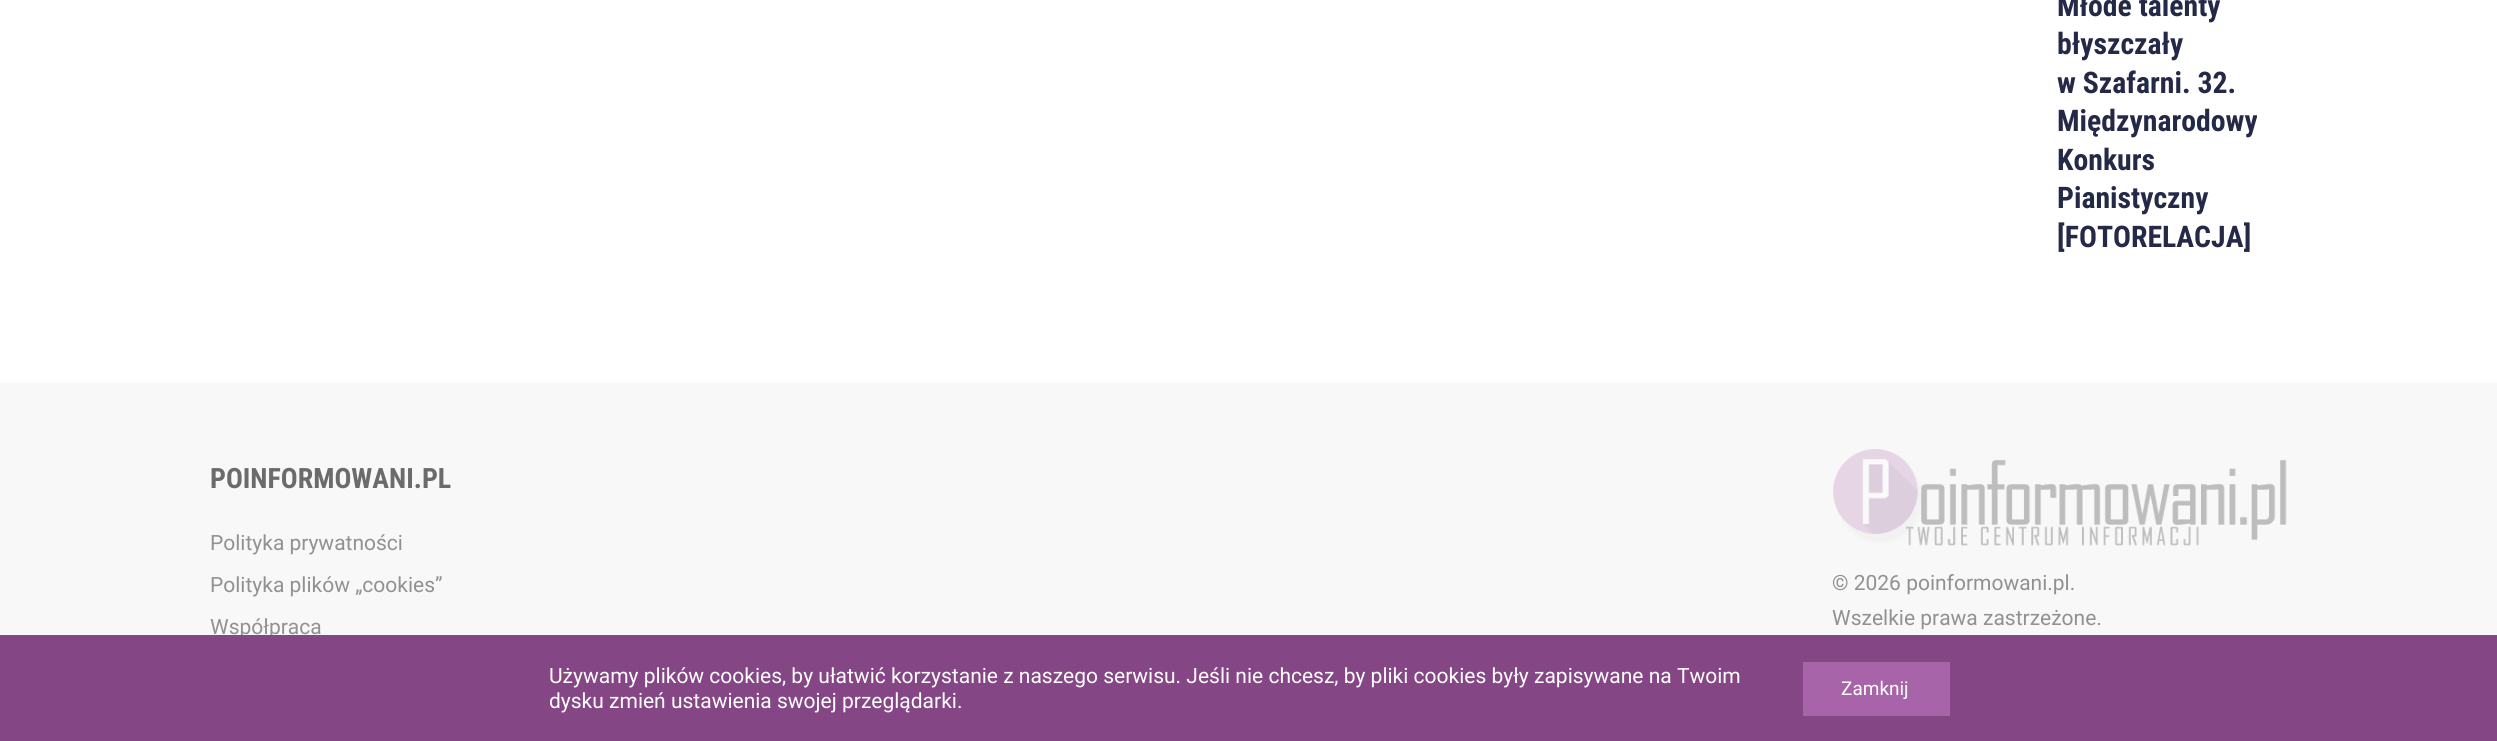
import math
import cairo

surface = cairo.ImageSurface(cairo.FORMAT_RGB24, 2497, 741)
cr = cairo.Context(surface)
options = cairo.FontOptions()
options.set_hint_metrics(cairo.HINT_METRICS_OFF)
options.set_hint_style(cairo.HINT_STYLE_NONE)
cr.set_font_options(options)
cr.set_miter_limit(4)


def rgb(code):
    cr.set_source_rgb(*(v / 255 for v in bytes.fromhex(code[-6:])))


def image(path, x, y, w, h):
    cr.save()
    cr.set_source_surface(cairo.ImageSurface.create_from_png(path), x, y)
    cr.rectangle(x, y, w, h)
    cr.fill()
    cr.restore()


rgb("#ffffff")
cr.paint()
rgb("#f8f8f8")
cr.rectangle(0, 383, 2497, 252)
cr.fill()
image("img/1.png", 1833, 449, 454, 97)
cr.select_font_face("Roboto Condensed", cairo.FONT_SLANT_NORMAL, cairo.FONT_WEIGHT_BOLD)
cr.set_font_size(29.75)
rgb("#242947")
for x, y, s in [
    (2057, 16, "Młode talenty"),
    (2057, 54, "błyszczały"),
    (2057, 93, "w Szafarni. 32."),
    (2057, 131, "Międzynarodowy"),
    (2057, 170, "Konkurs"),
    (2057, 208, "Pianistyczny"),
    (2057, 247, "[FOTORELACJA]"),
]:
    cr.move_to(x, y)
    cr.show_text(s)
cr.set_font_size(28)
rgb("#6b6b6b")
cr.move_to(210, 488)
cr.show_text("POINFORMOWANI.PL")
cr.select_font_face("Roboto")
cr.set_font_size(21)
rgb("#919191")
for x, y, s in [
    (210, 550, "Polityka prywatności"),
    (210, 592, "Polityka plików „cookies”"),
    (210, 634, "Współpraca"),
    (1832, 590, "© 2026 poinformowani.pl."),
    (1832, 625, "Wszelkie prawa zastrzeżone."),
]:
    cr.move_to(x, y)
    cr.show_text(s)
rgb("#854685")
cr.rectangle(0, 635, 2497, 106)
cr.fill()
rgb("#ffffff")
cr.move_to(549, 683)
cr.show_text("Używamy plików cookies, by ułatwić korzystanie z naszego serwisu. Jeśli nie chcesz, by pliki cookies były zapisywane na Twoim")
cr.move_to(549, 708)
cr.show_text("dysku zmień ustawienia swojej przeglądarki.")
rgb("#a864a8")
cr.rectangle(1803, 662, 147, 54)
cr.fill()
cr.set_font_size(19)
rgb("#ffffff")
cr.move_to(1841, 695)
cr.show_text("Zamknij")
surface.write_to_png("page.png")
